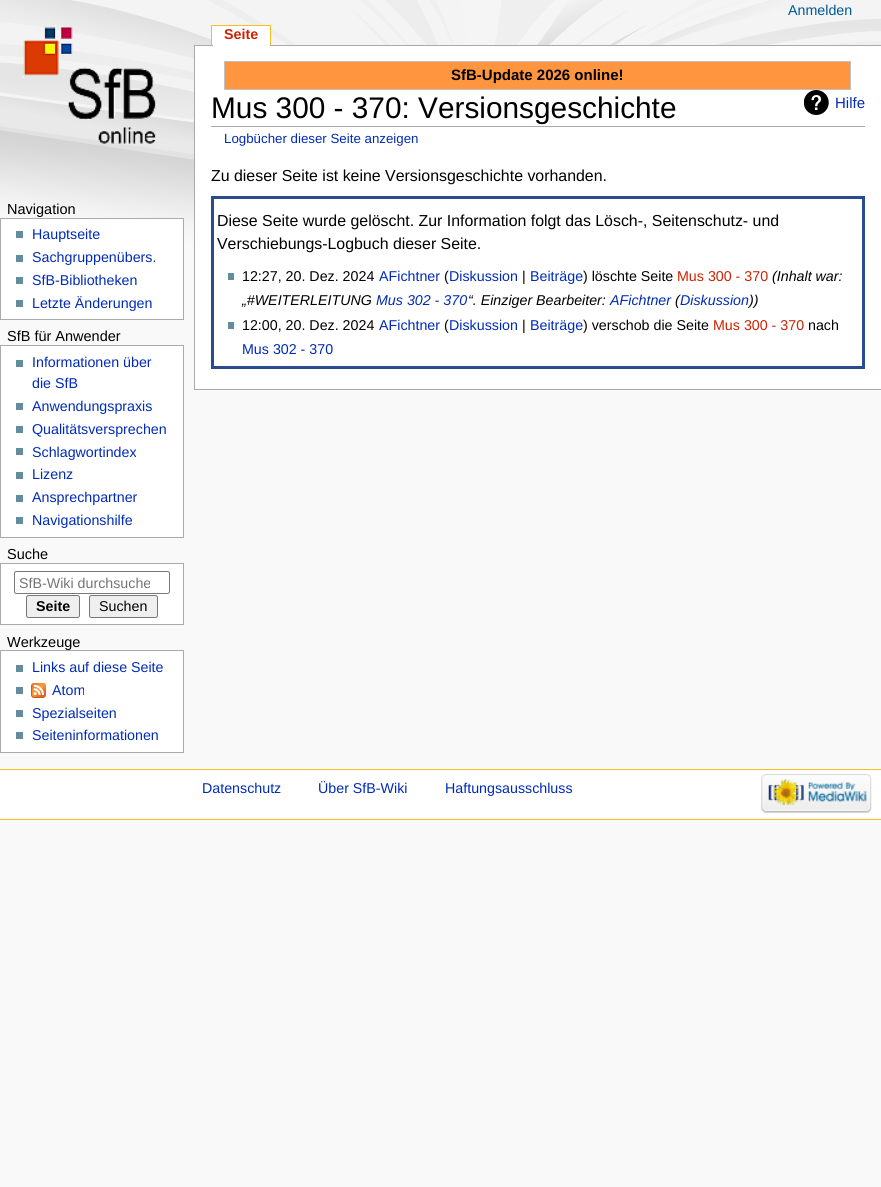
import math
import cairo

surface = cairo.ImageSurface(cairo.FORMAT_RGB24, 881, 1187)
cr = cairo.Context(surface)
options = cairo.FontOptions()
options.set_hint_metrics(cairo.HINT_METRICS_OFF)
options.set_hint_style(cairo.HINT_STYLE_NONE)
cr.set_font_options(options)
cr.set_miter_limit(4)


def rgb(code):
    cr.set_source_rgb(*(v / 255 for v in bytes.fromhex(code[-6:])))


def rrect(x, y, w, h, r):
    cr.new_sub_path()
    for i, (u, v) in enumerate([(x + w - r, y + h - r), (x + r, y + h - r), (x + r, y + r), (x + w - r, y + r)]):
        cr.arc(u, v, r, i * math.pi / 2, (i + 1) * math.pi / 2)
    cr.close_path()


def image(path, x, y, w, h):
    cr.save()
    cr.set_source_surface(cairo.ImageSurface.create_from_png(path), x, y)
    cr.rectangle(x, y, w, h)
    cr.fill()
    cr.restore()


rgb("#f9f9f9")
cr.paint()
image("img/1.png", 0, 0, 881, 263)
image("img/2.png", 22, 25, 134, 119)
for x, y, w, h, color in [
    (212, 26, 1, 19, "#ffffff"),
    (211, 25, 60, 1, "#fabd23"),
    (270, 25, 1, 20, "#fabd23"),
    (211, 25, 1, 20, "#fabd23"),
    (194, 45, 687, 1, "#aaaaaa"),
    (213, 26, 57, 20, "#ffffff"),
]:
    rgb(color)
    cr.rectangle(x, y, w, h)
    cr.fill()
cr.rectangle(0.5, 218.5, 183, 101)
cr.fill_preserve()
rgb("#aaaaaa")
cr.set_line_width(1)
cr.stroke()
for x, y, w, h, color in [
    (16, 231, 7, 7, "#638c9c"),
    (16, 255, 7, 7, "#638c9c"),
    (16, 277, 7, 7, "#638c9c"),
    (16, 300, 7, 7, "#638c9c"),
]:
    rgb(color)
    cr.rectangle(x, y, w, h)
    cr.fill()
rgb("#ffffff")
cr.rectangle(0.5, 345.5, 183, 192)
cr.fill_preserve()
rgb("#aaaaaa")
cr.stroke()
for x, y, w, h, color in [
    (16, 360, 7, 7, "#638c9c"),
    (16, 403, 7, 7, "#638c9c"),
    (16, 426, 7, 7, "#638c9c"),
    (16, 448, 7, 7, "#638c9c"),
    (16, 472, 7, 7, "#638c9c"),
    (16, 495, 7, 7, "#638c9c"),
    (16, 517, 7, 7, "#638c9c"),
]:
    rgb(color)
    cr.rectangle(x, y, w, h)
    cr.fill()
rgb("#ffffff")
cr.rectangle(0.5, 563.5, 183, 61)
cr.fill_preserve()
rgb("#aaaaaa")
cr.stroke()
rrect(14.5, 571.5, 155, 22, 2)
rgb("#767676")
cr.stroke()
rgb("#efefef")
rrect(26.5, 595.5, 53, 22, 2)
cr.fill_preserve()
rgb("#767676")
cr.stroke()
rgb("#efefef")
rrect(89.5, 595.5, 68, 22, 2)
cr.fill_preserve()
rgb("#767676")
cr.stroke()
rgb("#ffffff")
cr.rectangle(0.5, 650.5, 183, 102)
cr.fill_preserve()
rgb("#aaaaaa")
cr.stroke()
rgb("#638c9c")
cr.rectangle(16, 665, 7, 7)
cr.fill()
cr.rectangle(16, 687, 7, 7)
cr.fill()
image("img/3.png", 31, 683, 15, 15)
for x, y, w, h, color in [
    (16, 710, 7, 7, "#638c9c"),
    (16, 732, 7, 7, "#638c9c"),
    (195, 46, 686, 343, "#ffffff"),
    (194, 389, 687, 1, "#aaaaaa"),
    (194, 45, 1, 345, "#aaaaaa"),
    (225, 62, 625, 27, "#ff953e"),
    (224, 61, 627, 1, "#c0c0c0"),
    (850, 61, 1, 29, "#c0c0c0"),
    (224, 89, 627, 1, "#c0c0c0"),
    (224, 61, 1, 29, "#c0c0c0"),
    (211, 126, 654, 1, "#a2a9b1"),
]:
    rgb(color)
    cr.rectangle(x, y, w, h)
    cr.fill()
image("img/4.png", 804, 90, 25, 25)
cr.rectangle(212.5, 197.5, 651, 170)
rgb("#2a4b8d")
cr.set_line_width(3)
cr.stroke()
for x, y, w, h, color in [
    (228, 273, 6, 7, "#638c9c"),
    (228, 322, 6, 7, "#638c9c"),
    (0, 770, 881, 49, "#ffffff"),
    (0, 769, 881, 1, "#fabd23"),
    (0, 819, 881, 1, "#fabd23"),
]:
    rgb(color)
    cr.rectangle(x, y, w, h)
    cr.fill()
image("img/5.png", 761, 773, 111, 40)
cr.select_font_face("Liberation Sans")
cr.set_font_size(14.25)
rgb("#005896")
cr.move_to(788, 15)
cr.show_text("Anmelden")
cr.select_font_face("Liberation Sans", cairo.FONT_SLANT_NORMAL, cairo.FONT_WEIGHT_BOLD)
rgb("#cc2200")
cr.move_to(224, 39)
cr.show_text("Seite")
cr.select_font_face("Liberation Sans")
cr.set_font_size(14.5)
rgb("#000000")
cr.move_to(7, 214)
cr.show_text("Navigation")
cr.set_font_size(14.25)
rgb("#002bb8")
for x, y, s in [
    (32, 239, "Hauptseite"),
    (32, 262, "Sachgruppenübers."),
    (32, 285, "SfB-Bibliotheken"),
    (32, 308, "Letzte Änderungen"),
]:
    cr.move_to(x, y)
    cr.show_text(s)
cr.set_font_size(14.5)
rgb("#000000")
cr.move_to(7, 341)
cr.show_text("SfB für Anwender")
cr.set_font_size(14.25)
rgb("#002bb8")
for x, y, s in [
    (32, 367, "Informationen über"),
    (32, 388, "die SfB"),
    (32, 411, "Anwendungspraxis"),
    (32, 434, "Qualitätsversprechen"),
    (32, 457, "Schlagwortindex"),
    (32, 479, "Lizenz"),
    (32, 502, "Ansprechpartner"),
    (32, 525, "Navigationshilfe"),
]:
    cr.move_to(x, y)
    cr.show_text(s)
cr.set_font_size(14.5)
rgb("#000000")
cr.move_to(7, 559)
cr.show_text("Suche")
cr.save()
cr.rectangle(19, 575, 131, 15)
cr.clip()
cr.set_font_size(14.25)
rgb("#757575")
cr.move_to(19, 588)
cr.show_text("SfB-Wiki durchsuche")
cr.restore()
cr.select_font_face("Liberation Sans", cairo.FONT_SLANT_NORMAL, cairo.FONT_WEIGHT_BOLD)
cr.set_font_size(14.25)
cr.move_to(36, 611)
cr.show_text("Seite")
cr.select_font_face("Liberation Sans")
cr.move_to(99, 611)
cr.show_text("Suchen")
cr.set_font_size(14.5)
cr.move_to(7, 647)
cr.show_text("Werkzeuge")
cr.set_font_size(14.25)
rgb("#002bb8")
for x, y, s in [
    (32, 672, "Links auf diese Seite"),
    (52, 695, "Atom"),
    (32, 718, "Spezialseiten"),
    (32, 740, "Seiteninformationen"),
]:
    cr.move_to(x, y)
    cr.show_text(s)
cr.select_font_face("Liberation Sans", cairo.FONT_SLANT_NORMAL, cairo.FONT_WEIGHT_BOLD)
cr.set_font_size(15)
rgb("#000000")
cr.move_to(451, 80)
cr.show_text("SfB-Update 2026 online!")
cr.select_font_face("Liberation Sans")
cr.set_font_size(29.8)
cr.move_to(211, 118)
cr.show_text("Mus 300 - 370: Versionsgeschichte")
cr.set_font_size(15)
rgb("#002bb8")
cr.move_to(835, 108)
cr.show_text("Hilfe")
cr.set_font_size(13.3)
cr.move_to(224, 143)
cr.show_text("Logbücher dieser Seite anzeigen")
cr.set_font_size(15.9)
rgb("#000000")
for x, y, s in [
    (211, 181, "Zu dieser Seite ist keine Versionsgeschichte vorhanden."),
    (217, 226, "Diese Seite wurde gelöscht. Zur Information folgt das Lösch-, Seitenschutz- und"),
    (217, 249, "Verschiebungs-Logbuch dieser Seite."),
]:
    cr.move_to(x, y)
    cr.show_text(s)
cr.set_font_size(14.25)
cr.move_to(242, 281)
cr.show_text("12:27, 20. Dez. 2024")
rgb("#002bb8")
cr.move_to(379, 281)
cr.show_text("AFichtner")
rgb("#000000")
cr.move_to(444, 281)
cr.show_text("(")
rgb("#002bb8")
cr.move_to(449, 281)
cr.show_text("Diskussion")
rgb("#000000")
cr.move_to(522, 281)
cr.show_text("|")
rgb("#002bb8")
cr.move_to(530, 281)
cr.show_text("Beiträge")
rgb("#000000")
cr.move_to(583, 281)
cr.show_text(") löschte Seite")
rgb("#cc2200")
cr.move_to(677, 281)
cr.show_text("Mus 300 - 370")
cr.select_font_face("Liberation Sans", cairo.FONT_SLANT_ITALIC)
rgb("#000000")
cr.move_to(772, 281)
cr.show_text("(Inhalt war:")
cr.move_to(242, 305)
cr.show_text("„#WEITERLEITUNG")
rgb("#002bb8")
cr.move_to(376, 305)
cr.show_text("Mus 302 - 370")
rgb("#000000")
cr.move_to(468, 305)
cr.show_text("“. Einziger Bearbeiter:")
rgb("#002bb8")
cr.move_to(610, 305)
cr.show_text("AFichtner")
rgb("#000000")
cr.move_to(675, 305)
cr.show_text("(")
rgb("#002bb8")
cr.move_to(680, 305)
cr.show_text("Diskussion")
rgb("#000000")
cr.move_to(749, 305)
cr.show_text("))")
cr.select_font_face("Liberation Sans")
cr.move_to(242, 330)
cr.show_text("12:00, 20. Dez. 2024")
rgb("#002bb8")
cr.move_to(379, 330)
cr.show_text("AFichtner")
rgb("#000000")
cr.move_to(444, 330)
cr.show_text("(")
rgb("#002bb8")
cr.move_to(449, 330)
cr.show_text("Diskussion")
rgb("#000000")
cr.move_to(522, 330)
cr.show_text("|")
rgb("#002bb8")
cr.move_to(530, 330)
cr.show_text("Beiträge")
rgb("#000000")
cr.move_to(583, 330)
cr.show_text(") verschob die Seite")
rgb("#cc2200")
cr.move_to(713, 330)
cr.show_text("Mus 300 - 370")
rgb("#000000")
cr.move_to(808, 330)
cr.show_text("nach")
rgb("#002bb8")
for x, y, s in [
    (242, 354, "Mus 302 - 370"),
    (202, 793, "Datenschutz"),
    (318, 793, "Über SfB-Wiki"),
    (445, 793, "Haftungsausschluss"),
]:
    cr.move_to(x, y)
    cr.show_text(s)
surface.write_to_png("page.png")
